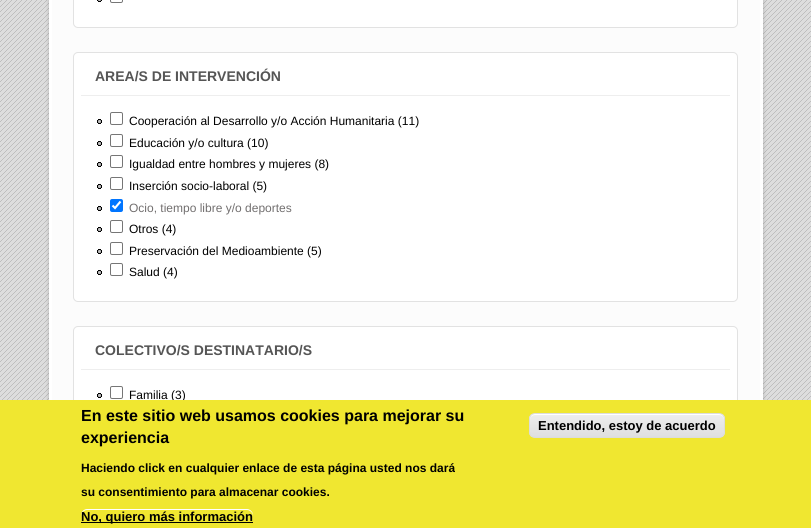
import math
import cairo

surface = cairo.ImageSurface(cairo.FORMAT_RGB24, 811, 528)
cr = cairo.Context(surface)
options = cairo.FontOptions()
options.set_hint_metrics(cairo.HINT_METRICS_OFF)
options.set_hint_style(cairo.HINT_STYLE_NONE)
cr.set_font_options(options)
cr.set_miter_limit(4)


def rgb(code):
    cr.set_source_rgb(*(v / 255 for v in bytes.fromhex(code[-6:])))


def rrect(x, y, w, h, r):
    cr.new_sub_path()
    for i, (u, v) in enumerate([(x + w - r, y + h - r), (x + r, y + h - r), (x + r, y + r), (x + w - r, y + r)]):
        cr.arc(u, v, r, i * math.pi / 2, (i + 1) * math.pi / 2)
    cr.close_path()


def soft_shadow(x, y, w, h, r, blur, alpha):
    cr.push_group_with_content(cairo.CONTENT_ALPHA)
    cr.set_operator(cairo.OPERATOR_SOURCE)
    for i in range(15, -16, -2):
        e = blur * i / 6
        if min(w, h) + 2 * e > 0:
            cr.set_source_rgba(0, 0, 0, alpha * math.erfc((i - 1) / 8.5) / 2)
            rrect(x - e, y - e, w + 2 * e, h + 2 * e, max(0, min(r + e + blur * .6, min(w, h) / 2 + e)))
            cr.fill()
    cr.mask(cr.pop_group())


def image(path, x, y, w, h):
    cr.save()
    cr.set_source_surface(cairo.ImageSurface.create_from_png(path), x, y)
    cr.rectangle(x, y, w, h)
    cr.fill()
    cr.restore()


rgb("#dddddd")
cr.paint()
image("img/1.png", 0, 0, 811, 400)
rgb("#000000")
soft_shadow(49, -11, 714, 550, 5, 2, 0.2)
for x, y, w, h, color in [
    (760, 0, 3, 400, "#ffffff"),
    (49, 0, 3, 400, "#ffffff"),
    (52, 0, 708, 400, "#fcfcfc"),
]:
    rgb(color)
    cr.rectangle(x, y, w, h)
    cr.fill()
rgb("#ffffff")
rrect(73.5, -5.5, 664, 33, 4.5)
cr.fill_preserve()
rgb("#e2e2e2")
cr.set_line_width(1)
cr.stroke()
image("img/2.png", 97, 0, 5, 2)
rrect(110.5, -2.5, 12, 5, 1.5)
rgb("#767676")
cr.stroke()
rgb("#ffffff")
rrect(73.5, 52.5, 664, 249, 4.5)
cr.fill_preserve()
rgb("#e2e2e2")
cr.stroke()
rgb("#eeeeee")
cr.rectangle(81, 95, 649, 1)
cr.fill()
image("img/3.png", 97, 119, 5, 5)
rrect(110.5, 112.5, 12, 12, 1.5)
rgb("#767676")
cr.stroke()
image("img/3.png", 97, 141, 5, 5)
rrect(110.5, 134.5, 12, 12, 1.5)
cr.stroke()
image("img/3.png", 97, 162, 5, 5)
rrect(110.5, 155.5, 12, 12, 1.5)
cr.stroke()
image("img/3.png", 97, 184, 5, 5)
rrect(110.5, 177.5, 12, 12, 1.5)
cr.stroke()
image("img/3.png", 97, 206, 5, 5)
rgb("#0075ff")
rrect(110, 199, 13, 13, 2)
cr.fill()
cr.new_path()
cr.move_to(112.5, 205.5)
cr.line_to(115, 208)
cr.line_to(120.5, 201.5)
rgb("#ffffff")
cr.set_line_width(2.1)
cr.stroke()
image("img/3.png", 97, 227, 5, 5)
rrect(110.5, 220.5, 12, 12, 1.5)
rgb("#767676")
cr.set_line_width(1)
cr.stroke()
image("img/3.png", 97, 249, 5, 5)
rrect(110.5, 242.5, 12, 12, 1.5)
cr.stroke()
image("img/3.png", 97, 270, 5, 5)
rrect(110.5, 263.5, 12, 12, 1.5)
cr.stroke()
rgb("#ffffff")
rrect(73.5, 326.5, 664, 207, 4.5)
cr.fill_preserve()
rgb("#e2e2e2")
cr.stroke()
rgb("#eeeeee")
cr.rectangle(81, 369, 649, 1)
cr.fill()
image("img/3.png", 97, 393, 5, 5)
rrect(110.5, 386.5, 12, 12, 1.5)
rgb("#767676")
cr.stroke()
cr.select_font_face("Liberation Sans", cairo.FONT_SLANT_NORMAL, cairo.FONT_WEIGHT_BOLD)
cr.set_font_size(14)
rgb("#555555")
cr.move_to(95, 81)
cr.show_text("AREA/S DE INTERVENCIÓN")
cr.select_font_face("Liberation Sans")
cr.set_font_size(12)
rgb("#000000")
for x, y, s in [
    (129, 125, "Cooperación al Desarrollo y/o Acción Humanitaria (11)"),
    (129, 147, "Educación y/o cultura (10)"),
    (129, 168, "Igualdad entre hombres y mujeres (8)"),
    (129, 190, "Inserción socio-laboral (5)"),
]:
    cr.move_to(x, y)
    cr.show_text(s)
rgb("#726f6f")
cr.move_to(129, 212)
cr.show_text("Ocio, tiempo libre y/o deportes")
rgb("#000000")
for x, y, s in [
    (129, 233, "Otros (4)"),
    (129, 255, "Preservación del Medioambiente (5)"),
    (129, 276, "Salud (4)"),
]:
    cr.move_to(x, y)
    cr.show_text(s)
cr.select_font_face("Liberation Sans", cairo.FONT_SLANT_NORMAL, cairo.FONT_WEIGHT_BOLD)
cr.set_font_size(14)
rgb("#555555")
cr.move_to(95, 355)
cr.show_text("COLECTIVO/S DESTINATARIO/S")
cr.select_font_face("Liberation Sans")
cr.set_font_size(12)
rgb("#000000")
cr.move_to(129, 399)
cr.show_text("Familia (3)")
rgb("#f0e730")
cr.rectangle(0, 400, 811, 128)
cr.fill()
cr.select_font_face("Liberation Sans", cairo.FONT_SLANT_NORMAL, cairo.FONT_WEIGHT_BOLD)
cr.set_font_size(16)
rgb("#000000")
cr.move_to(81, 421)
cr.show_text("En este sitio web usamos cookies para mejorar su")
cr.move_to(81, 443)
cr.show_text("experiencia")
cr.set_font_size(12)
cr.move_to(81, 472)
cr.show_text("Haciendo click en cualquier enlace de esta página usted nos dará")
cr.move_to(81, 496)
cr.show_text("su consentimiento para almacenar cookies.")
rgb("#ffffff")
cr.new_path()
cr.move_to(87, 510)
cr.line_to(247, 510)
cr.curve_to(250, 510, 253, 513, 253, 516)
cr.line_to(253, 515)
cr.curve_to(253, 512, 250, 509, 247, 509)
cr.line_to(87, 509)
cr.curve_to(84, 509, 81, 512, 81, 515)
cr.line_to(81, 516)
cr.curve_to(81, 513, 84, 510, 87, 510)
cr.close_path()
cr.fill()
rgb("#000000")
cr.rectangle(81, 522, 172, 1)
cr.fill()
cr.set_font_size(13)
cr.move_to(81, 521)
cr.show_text("No, quiero más información")
cr.save()
rrect(529, 413, 196, 25, 6)
cr.clip()
gradient = cairo.LinearGradient(627, 414, 627, 437)
gradient.add_color_stop_rgba(0.05, 0.929, 0.929, 0.929, 1)
gradient.add_color_stop_rgba(1, 0.875, 0.875, 0.875, 1)
cr.set_source(gradient)
cr.rectangle(529, 414, 196, 23)
cr.fill()
cr.restore()
rgb("#ffffff")
cr.new_path()
cr.move_to(535, 415)
cr.line_to(719, 415)
cr.curve_to(722, 415, 724, 417, 724, 420)
cr.line_to(724, 419)
cr.curve_to(724, 416, 722, 414, 719, 414)
cr.line_to(535, 414)
cr.curve_to(532, 414, 530, 416, 530, 419)
cr.line_to(530, 420)
cr.curve_to(530, 417, 532, 415, 535, 415)
cr.close_path()
cr.fill()
rrect(529.5, 413.5, 195, 24, 5.5)
rgb("#dcdcdc")
cr.stroke()
rgb("#000000")
cr.move_to(538, 430)
cr.show_text("Entendido, estoy de acuerdo")
surface.write_to_png("page.png")
